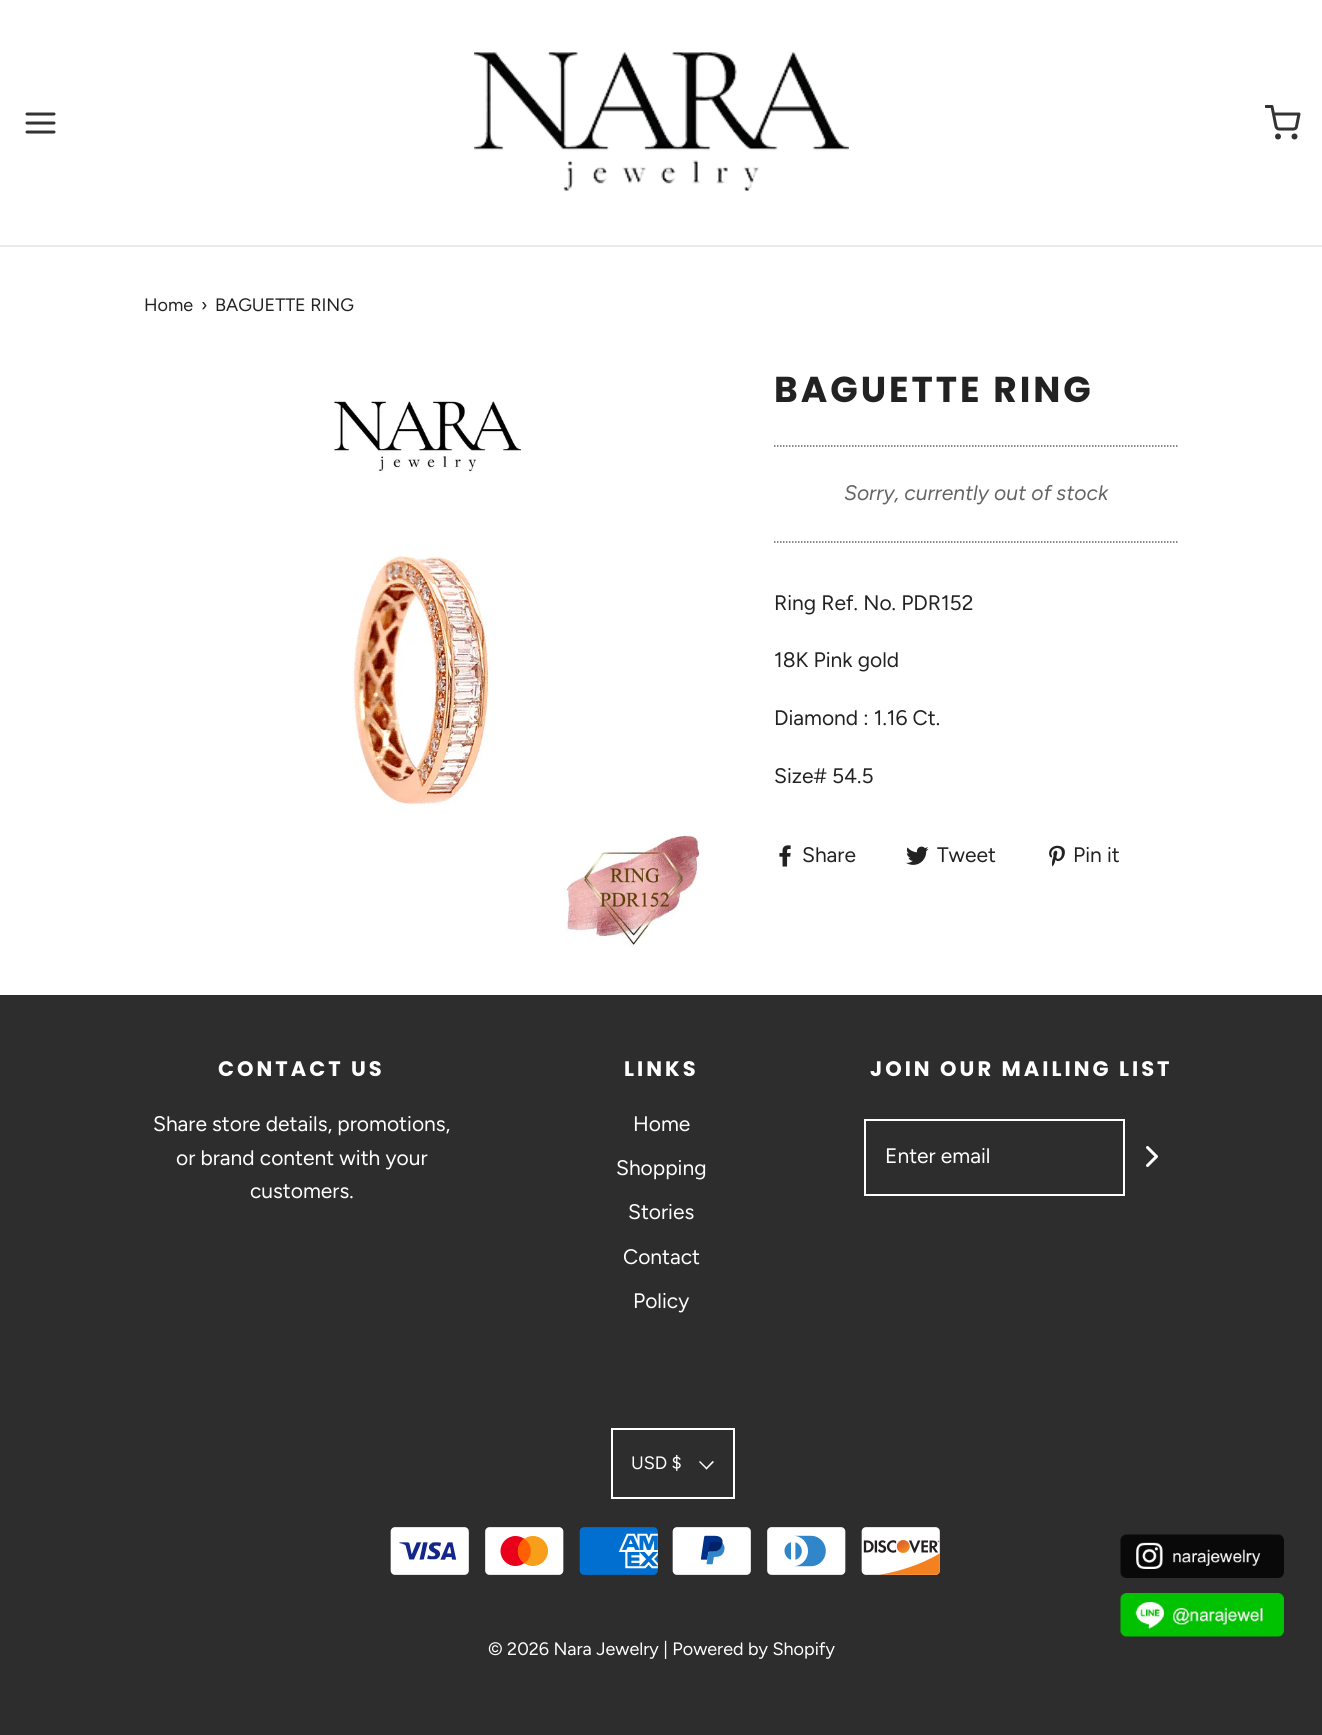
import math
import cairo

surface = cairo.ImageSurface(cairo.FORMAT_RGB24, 1322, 1735)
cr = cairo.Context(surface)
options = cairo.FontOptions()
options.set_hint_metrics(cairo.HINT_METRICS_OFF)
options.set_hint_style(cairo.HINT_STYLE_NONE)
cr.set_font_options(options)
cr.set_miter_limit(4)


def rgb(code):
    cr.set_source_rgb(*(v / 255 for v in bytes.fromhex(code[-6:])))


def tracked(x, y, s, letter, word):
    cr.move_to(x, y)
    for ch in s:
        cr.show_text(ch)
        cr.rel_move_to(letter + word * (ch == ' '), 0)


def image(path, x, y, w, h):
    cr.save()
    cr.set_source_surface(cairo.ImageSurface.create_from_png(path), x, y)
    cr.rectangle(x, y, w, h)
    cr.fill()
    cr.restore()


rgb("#ffffff")
cr.paint()
rgb("#ebebeb")
cr.rectangle(0, 245, 1322, 2)
cr.fill()
cr.new_path()
cr.move_to(27, 123)
cr.line_to(54, 123)
cr.move_to(27, 114)
cr.line_to(54, 114)
cr.move_to(27, 132)
cr.line_to(54, 132)
rgb("#333333")
cr.set_line_width(3)
cr.set_line_cap(cairo.LINE_CAP_ROUND)
cr.set_line_join(cairo.LINE_JOIN_ROUND)
cr.stroke()
image("img/1.png", 474, 52, 375, 139)
cr.save()
cr.rectangle(1265, 105, 36, 36)
cr.clip()
cr.new_path()
cr.move_to(1266, 106.5)
cr.line_to(1272, 106.5)
cr.line_to(1276, 126.5)
cr.curve_to(1276.5, 128, 1277.5, 129, 1279, 129)
cr.line_to(1293.5, 129)
cr.curve_to(1295, 129, 1296.5, 128, 1296.5, 126.5)
cr.line_to(1299, 114)
cr.line_to(1273.5, 114)
cr.stroke()
cr.restore()
cr.arc(1278, 136.5, 1.5, 0, 2 * math.pi)
cr.set_line_cap(cairo.LINE_CAP_BUTT)
cr.set_line_join(cairo.LINE_JOIN_MITER)
cr.stroke()
cr.arc(1294.5, 136.5, 1.5, 0, 2 * math.pi)
cr.stroke()
image("img/2.png", 334, 400, 367, 547)
cr.new_path()
cr.move_to(774, 446)
cr.line_to(1179, 446)
rgb("#646464")
cr.set_line_width(1.5)
cr.set_dash([1.5, 1.5])
cr.stroke()
cr.new_path()
cr.move_to(774, 542)
cr.line_to(1179, 542)
cr.stroke()
image("img/3.png", 779, 845, 12, 22)
image("img/4.png", 906, 846, 23, 19)
image("img/5.png", 1049, 845, 16, 22)
rgb("#2d2d2d")
cr.rectangle(0, 995, 1322, 740)
cr.fill()
cr.rectangle(865, 1120, 259, 75)
rgb("#ffffff")
cr.set_line_width(2)
cr.set_dash([])
cr.stroke()
cr.new_path()
cr.move_to(1147.5, 1165.5)
cr.line_to(1156.5, 1156.5)
cr.line_to(1147.5, 1147.5)
cr.set_line_width(3)
cr.set_line_cap(cairo.LINE_CAP_ROUND)
cr.set_line_join(cairo.LINE_JOIN_ROUND)
cr.stroke()
cr.rectangle(612, 1429, 122, 69)
cr.set_line_width(2)
cr.set_line_cap(cairo.LINE_CAP_BUTT)
cr.set_line_join(cairo.LINE_JOIN_MITER)
cr.stroke()
cr.new_path()
cr.move_to(712.5, 1461)
cr.line_to(714, 1462)
cr.line_to(706.5, 1469.5)
cr.line_to(705.5, 1468.5)
cr.close_path()
cr.fill()
cr.new_path()
cr.move_to(700, 1461)
cr.line_to(707.5, 1468.5)
cr.line_to(706.5, 1469.5)
cr.line_to(699, 1462)
cr.close_path()
cr.fill()
image("img/6.png", 390, 1527, 79, 48)
image("img/7.png", 485, 1527, 79, 48)
image("img/8.png", 579, 1527, 79, 48)
image("img/9.png", 672, 1527, 79, 48)
image("img/10.png", 767, 1527, 79, 48)
image("img/11.png", 861, 1527, 79, 48)
image("img/12.png", 1120, 1534, 164, 44)
image("img/13.png", 1120, 1593, 164, 44)
cr.select_font_face("Figtree")
cr.set_font_size(18)
rgb("#222222")
for x, y, s in [
    (144, 311, "Home"),
    (201, 311, "›"),
    (215, 311, "BAGUETTE RING"),
]:
    cr.move_to(x, y)
    cr.show_text(s)
cr.select_font_face("Poppins", cairo.FONT_SLANT_NORMAL, cairo.FONT_WEIGHT_BOLD)
cr.set_font_size(36)
tracked(774, 402, "BAGUETTE RING", 3, 0)
cr.select_font_face("Figtree", cairo.FONT_SLANT_ITALIC)
cr.set_font_size(21)
rgb("#646464")
cr.move_to(844, 500)
cr.show_text("Sorry, currently out of stock")
cr.select_font_face("Figtree")
rgb("#222222")
for x, y, s in [
    (774, 610, "Ring Ref. No. PDR152"),
    (774, 667, "18K Pink gold"),
    (774, 725, "Diamond : 1.16 Ct."),
    (774, 783, "Size# 54.5"),
    (802, 862, "Share"),
    (937, 862, "Tweet"),
    (1073, 862, "Pin it"),
]:
    cr.move_to(x, y)
    cr.show_text(s)
cr.select_font_face("Poppins", cairo.FONT_SLANT_NORMAL, cairo.FONT_WEIGHT_BOLD)
rgb("#ffffff")
tracked(218, 1076, "CONTACT US", 3, 0)
cr.select_font_face("Figtree")
for x, y, s in [
    (153, 1131, "Share store details, promotions,"),
    (176, 1165, "or brand content with your"),
    (250, 1198, "customers."),
]:
    cr.move_to(x, y)
    cr.show_text(s)
cr.select_font_face("Poppins", cairo.FONT_SLANT_NORMAL, cairo.FONT_WEIGHT_BOLD)
tracked(624, 1076, "LINKS", 3, 0)
cr.select_font_face("Figtree")
for x, y, s in [
    (633, 1131, "Home"),
    (616, 1175, "Shopping"),
    (628, 1219, "Stories"),
    (623, 1264, "Contact"),
    (633, 1308, "Policy"),
]:
    cr.move_to(x, y)
    cr.show_text(s)
cr.select_font_face("Poppins", cairo.FONT_SLANT_NORMAL, cairo.FONT_WEIGHT_BOLD)
tracked(870, 1076, "JOIN OUR MAILING LIST", 3, 0)
cr.select_font_face("Figtree")
cr.move_to(885, 1163)
cr.show_text("Enter email")
cr.set_font_size(18)
cr.move_to(631, 1469)
cr.show_text("USD $")
cr.move_to(488, 1655)
cr.show_text("© 2026 Nara Jewelry | Powered by Shopify")
surface.write_to_png("page.png")
